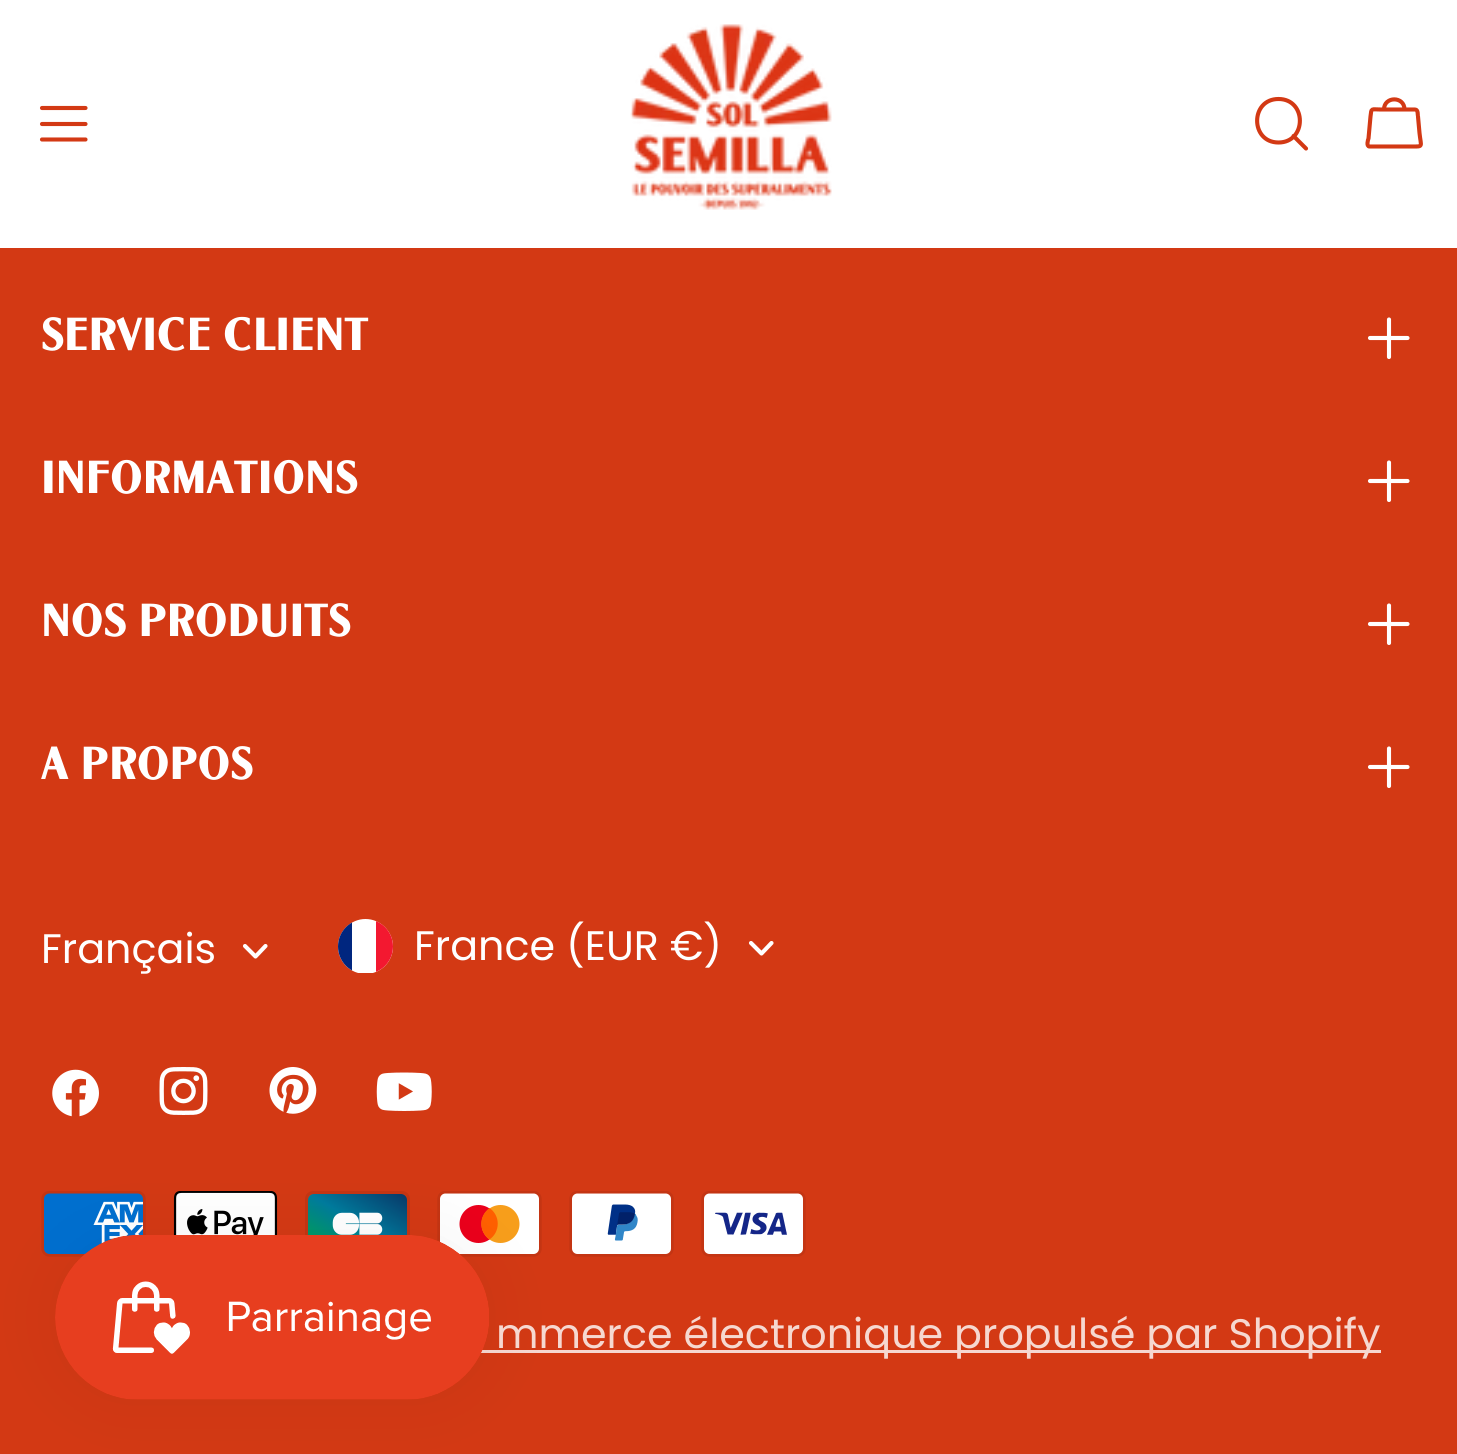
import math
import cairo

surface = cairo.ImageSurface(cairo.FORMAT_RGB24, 1457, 1454)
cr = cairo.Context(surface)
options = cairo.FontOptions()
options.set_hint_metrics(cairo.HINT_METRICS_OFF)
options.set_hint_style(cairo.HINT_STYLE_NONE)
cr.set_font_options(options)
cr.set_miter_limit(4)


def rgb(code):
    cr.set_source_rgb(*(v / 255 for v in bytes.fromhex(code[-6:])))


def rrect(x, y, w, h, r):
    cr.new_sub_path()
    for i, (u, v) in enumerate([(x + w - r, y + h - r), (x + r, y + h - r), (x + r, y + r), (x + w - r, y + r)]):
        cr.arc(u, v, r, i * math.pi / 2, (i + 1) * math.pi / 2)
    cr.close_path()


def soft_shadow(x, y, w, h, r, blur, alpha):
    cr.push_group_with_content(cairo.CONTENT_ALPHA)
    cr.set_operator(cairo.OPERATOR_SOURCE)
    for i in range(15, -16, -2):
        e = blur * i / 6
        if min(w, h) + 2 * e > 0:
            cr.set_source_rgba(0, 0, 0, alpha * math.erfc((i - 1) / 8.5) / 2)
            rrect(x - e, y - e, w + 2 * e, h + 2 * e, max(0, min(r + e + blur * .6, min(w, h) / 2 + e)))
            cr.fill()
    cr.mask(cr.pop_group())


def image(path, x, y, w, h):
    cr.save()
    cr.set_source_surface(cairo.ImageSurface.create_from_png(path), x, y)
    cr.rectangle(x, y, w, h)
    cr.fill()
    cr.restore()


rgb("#d33914")
cr.paint()
rgb("#ffffff")
cr.rectangle(0, 0, 1457, 248)
cr.fill()
cr.new_path()
cr.move_to(42, 124)
cr.line_to(85.5, 124)
cr.move_to(42, 108)
cr.line_to(85.5, 108)
cr.move_to(42, 139.5)
cr.line_to(85.5, 139.5)
rgb("#d33914")
cr.set_line_width(4.1)
cr.set_line_cap(cairo.LINE_CAP_ROUND)
cr.set_line_join(cairo.LINE_JOIN_ROUND)
cr.stroke()
image("img/1.png", 630, 24, 202, 186)
cr.new_path()
cr.move_to(1278.5, 142.5)
cr.curve_to(1307, 142.5, 1307, 99, 1278.5, 99)
cr.curve_to(1250, 99, 1250, 142.5, 1278.5, 142.5)
cr.close_path()
cr.move_to(1293.5, 136)
cr.line_to(1306, 148.5)
cr.stroke()
cr.new_path()
cr.move_to(1415, 109.5)
cr.line_to(1380.5, 109.5)
cr.curve_to(1371, 109.5, 1371.5, 107.5, 1370.5, 116.5)
cr.line_to(1368.5, 138.5)
cr.curve_to(1368, 139.5, 1366, 146.5, 1369.5, 146.5)
cr.line_to(1410.5, 146.5)
cr.curve_to(1424, 146.5, 1421, 147.5, 1419.5, 133)
cr.line_to(1418, 116.5)
cr.curve_to(1417.5, 115.5, 1418.5, 109.5, 1415, 109.5)
cr.close_path()
cr.move_to(1384, 109.5)
cr.curve_to(1384, 96, 1404.5, 96, 1404.5, 109.5)
cr.stroke()
cr.new_path()
cr.move_to(1370, 338)
cr.line_to(1407.5, 338)
cr.move_to(1389, 319.5)
cr.line_to(1389, 357)
rgb("#ffffff")
cr.stroke()
cr.new_path()
cr.move_to(1370, 481)
cr.line_to(1407.5, 481)
cr.move_to(1389, 462.5)
cr.line_to(1389, 500)
cr.stroke()
cr.new_path()
cr.move_to(1370, 624)
cr.line_to(1407.5, 624)
cr.move_to(1389, 605.5)
cr.line_to(1389, 643)
cr.stroke()
cr.new_path()
cr.move_to(1370, 767)
cr.line_to(1407.5, 767)
cr.move_to(1389, 748.5)
cr.line_to(1389, 786)
cr.stroke()
cr.new_path()
cr.move_to(265.5, 946)
cr.line_to(255.5, 956.5)
cr.line_to(245, 946)
cr.stroke()
cr.save()
rrect(338, 919, 55, 55, 27.5)
cr.clip()
cr.new_path()
cr.move_to(365.5, 919)
cr.curve_to(380.5, 919, 393, 931.5, 393, 946.5)
cr.line_to(393, 973)
cr.line_to(338, 973)
cr.line_to(338, 946.5)
cr.curve_to(338, 931.5, 350.5, 919, 365.5, 919)
cr.close_path()
cr.fill()
rgb("#00267f")
cr.rectangle(338, 922, 14, 49)
cr.fill()
rgb("#f31830")
cr.rectangle(376, 921, 17, 51)
cr.fill()
cr.restore()
cr.new_path()
cr.move_to(771.5, 943)
cr.line_to(761.5, 953.5)
cr.line_to(751, 943)
cr.stroke()
image("img/2.png", 52, 1069, 47, 48)
image("img/3.png", 159, 1067, 49, 48)
image("img/4.png", 269, 1067, 48, 47)
image("img/5.png", 376, 1072, 56, 39)
image("img/6.png", 41, 1191, 105, 66)
image("img/7.png", 173, 1191, 105, 44)
image("img/8.png", 305, 1191, 105, 44)
image("img/9.png", 437, 1191, 105, 66)
image("img/10.png", 569, 1191, 105, 66)
image("img/11.png", 701, 1191, 105, 66)
rgb("#f6d7d0")
cr.rectangle(481, 1350, 900, 3)
cr.fill()
rgb("#000000")
soft_shadow(55, 1235, 435, 165, 82.5, 34.5, 0.05)
image("img/12.png", 55, 1235, 434, 165)
cr.select_font_face("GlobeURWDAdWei")
cr.set_font_size(48.5)
rgb("#ffffff")
for x, y, s in [
    (41, 350, "SERVICE CLIENT"),
    (41, 493, "INFORMATIONS"),
    (41, 636, "NOS PRODUITS"),
    (41, 779, "A PROPOS"),
]:
    cr.move_to(x, y)
    cr.show_text(s)
cr.select_font_face("Poppins")
cr.set_font_size(41.25)
cr.move_to(41, 963)
cr.show_text("Français")
cr.move_to(414, 960)
cr.show_text("France (EUR €)")
rgb("#f6d8d0")
cr.move_to(496, 1348)
cr.show_text("mmerce électronique propulsé par Shopify")
surface.write_to_png("page.png")
